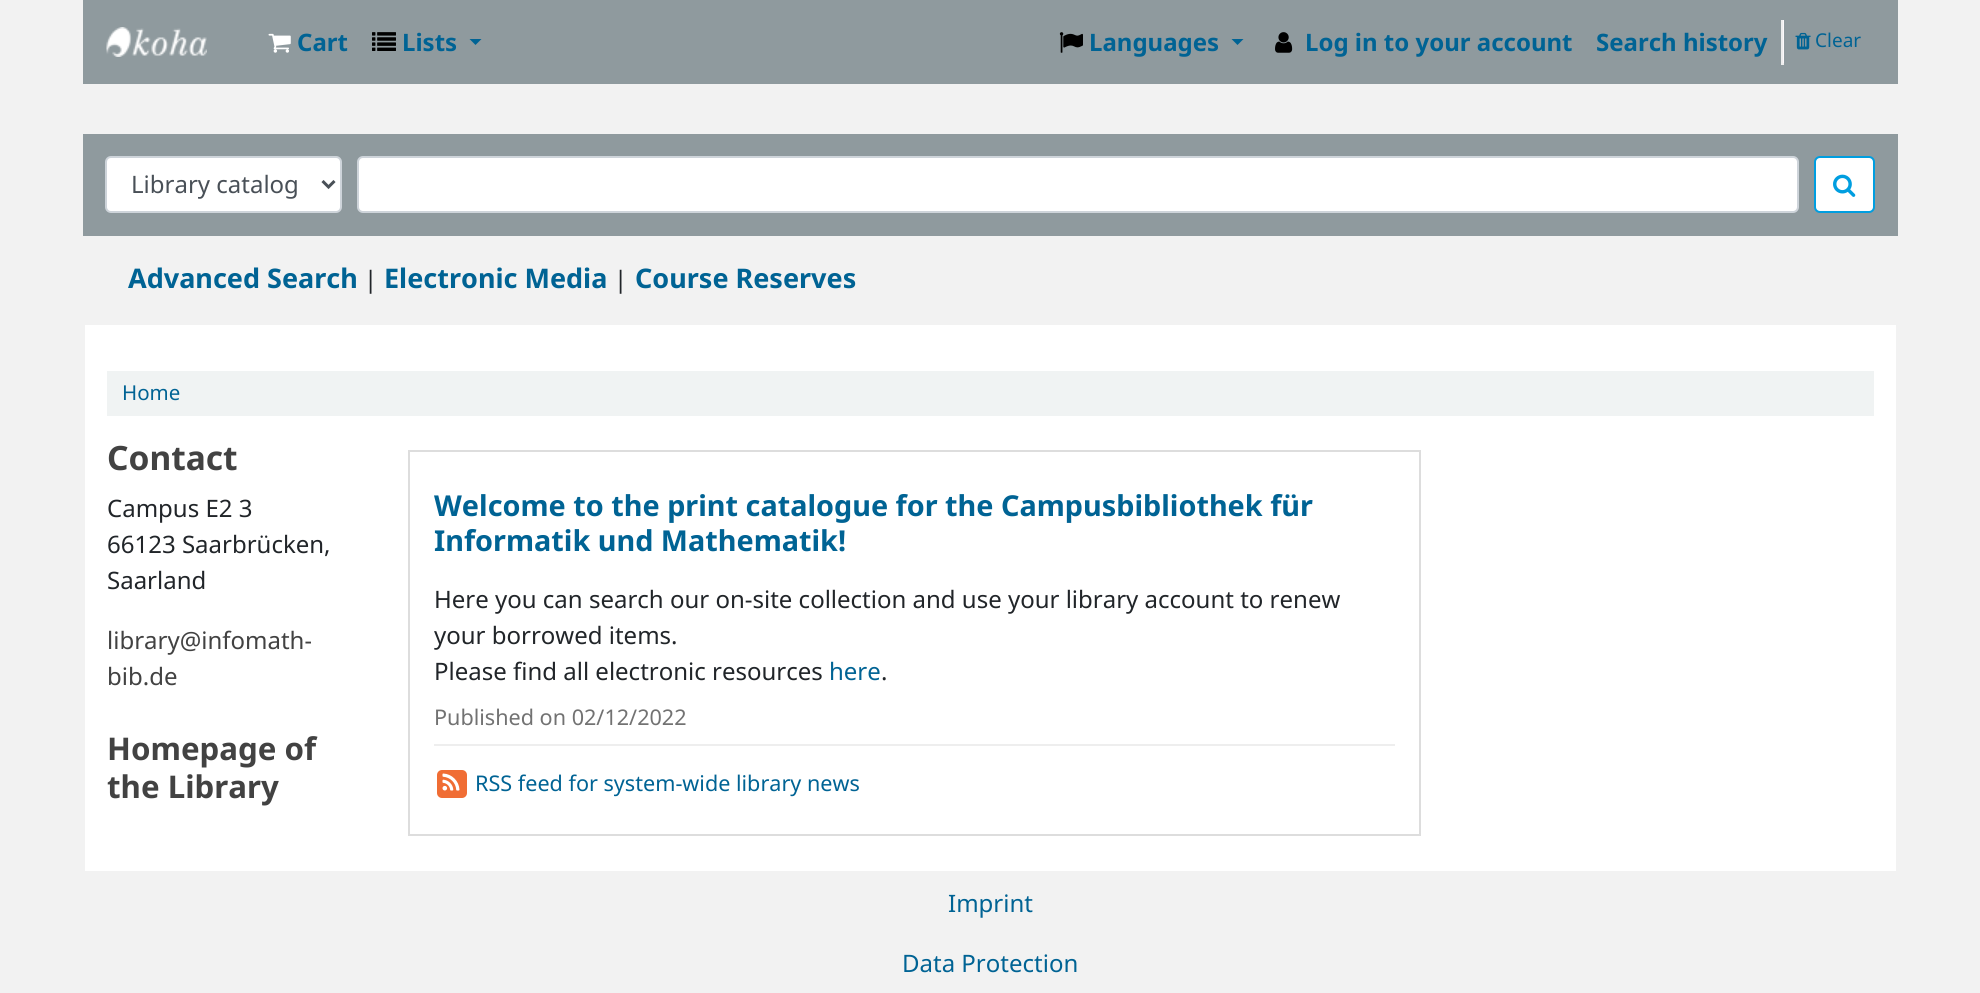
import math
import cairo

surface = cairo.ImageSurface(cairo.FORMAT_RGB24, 1980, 993)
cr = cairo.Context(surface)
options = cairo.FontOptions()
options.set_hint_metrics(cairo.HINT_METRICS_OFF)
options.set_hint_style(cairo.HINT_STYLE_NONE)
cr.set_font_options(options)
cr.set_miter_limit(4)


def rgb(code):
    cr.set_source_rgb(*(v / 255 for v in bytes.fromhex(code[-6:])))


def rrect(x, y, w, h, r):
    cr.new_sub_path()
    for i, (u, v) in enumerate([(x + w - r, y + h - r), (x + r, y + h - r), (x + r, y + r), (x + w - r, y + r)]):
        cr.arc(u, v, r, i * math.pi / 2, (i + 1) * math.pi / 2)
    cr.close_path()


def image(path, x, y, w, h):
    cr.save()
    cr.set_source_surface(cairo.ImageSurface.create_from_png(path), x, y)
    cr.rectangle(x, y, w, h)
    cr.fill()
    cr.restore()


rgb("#f2f2f2")
cr.paint()
rgb("#8f9a9e")
cr.rectangle(83, 0, 1815, 84)
cr.fill()
image("img/1.png", 106, 27, 101, 30)
image("img/2.png", 268, 33, 23, 20)
image("img/3.png", 372, 32, 24, 19)
rgb("#006394")
cr.new_path()
cr.move_to(469.5, 39)
cr.line_to(481.5, 39)
cr.line_to(475.5, 45)
cr.close_path()
cr.fill()
image("img/4.png", 1059, 32, 24, 21)
cr.new_path()
cr.move_to(1231.5, 39)
cr.line_to(1243.5, 39)
cr.line_to(1237.5, 45)
cr.close_path()
cr.fill()
image("img/5.png", 1275, 32, 18, 21)
for x, y, w, h, color in [
    (1783, 20, 1, 45, "#fcf9fc"),
    (1781, 63, 3, 2, "#eeeeee"),
    (1781, 20, 2, 45, "#eeeeee"),
]:
    rgb(color)
    cr.rectangle(x, y, w, h)
    cr.fill()
image("img/6.png", 1795, 32, 16, 18)
rgb("#8f9a9e")
cr.rectangle(83, 134, 1815, 102)
cr.fill()
rgb("#ffffff")
rrect(106, 157, 235, 55, 5)
cr.fill_preserve()
rgb("#ced4da")
cr.stroke()
cr.new_path()
cr.move_to(322.5, 181)
cr.line_to(328.5, 187)
cr.line_to(334.5, 181)
rgb("#495057")
cr.set_line_width(3)
cr.stroke()
rgb("#ffffff")
rrect(358, 157, 1440, 55, 5)
cr.fill_preserve()
rgb("#ced4da")
cr.set_line_width(2)
cr.stroke()
rgb("#ffffff")
rrect(1815, 157, 59, 55, 5)
cr.fill_preserve()
rgb("#009ee0")
cr.stroke()
image("img/7.png", 1833, 174, 23, 23)
rgb("#ffffff")
cr.rectangle(85, 325, 1811, 546)
cr.fill()
rgb("#f0f3f3")
cr.rectangle(107, 371, 1767, 45)
cr.fill()
cr.rectangle(409, 451, 1011, 384)
rgb("#dddddd")
cr.stroke()
rgb("#eeeeee")
cr.rectangle(434, 744, 961, 2)
cr.fill()
rgb("#f06d34")
rrect(437, 770, 30, 28, 5)
cr.fill()
image("img/8.png", 442, 773, 18, 18)
cr.select_font_face("Noto Sans", cairo.FONT_SLANT_NORMAL, cairo.FONT_WEIGHT_BOLD)
cr.set_font_size(24)
rgb("#006394")
for x, y, s in [
    (297, 51, "Cart"),
    (402, 51, "Lists"),
    (1089, 51, "Languages"),
    (1305, 51, "Log in to your account"),
    (1596, 51, "Search history"),
]:
    cr.move_to(x, y)
    cr.show_text(s)
cr.select_font_face("Noto Sans")
cr.set_font_size(19)
cr.move_to(1815, 47)
cr.show_text("Clear")
cr.set_font_size(24)
rgb("#495057")
cr.move_to(131, 193)
cr.show_text("Library catalog")
cr.select_font_face("Noto Sans", cairo.FONT_SLANT_NORMAL, cairo.FONT_WEIGHT_BOLD)
cr.set_font_size(27)
rgb("#006394")
cr.move_to(128, 288)
cr.show_text("Advanced Search")
cr.select_font_face("Noto Sans")
cr.set_font_size(24)
rgb("#212529")
cr.move_to(364, 288)
cr.show_text("|")
cr.select_font_face("Noto Sans", cairo.FONT_SLANT_NORMAL, cairo.FONT_WEIGHT_BOLD)
cr.set_font_size(27)
rgb("#006394")
cr.move_to(384, 288)
cr.show_text("Electronic Media")
cr.select_font_face("Noto Sans")
cr.set_font_size(24)
rgb("#212529")
cr.move_to(614, 288)
cr.show_text("|")
cr.select_font_face("Noto Sans", cairo.FONT_SLANT_NORMAL, cairo.FONT_WEIGHT_BOLD)
cr.set_font_size(27)
rgb("#006394")
cr.move_to(635, 288)
cr.show_text("Course Reserves")
cr.select_font_face("Noto Sans")
cr.set_font_size(20.5)
cr.move_to(122, 400)
cr.show_text("Home")
cr.select_font_face("Noto Sans", cairo.FONT_SLANT_NORMAL, cairo.FONT_WEIGHT_BOLD)
cr.set_font_size(33.5)
rgb("#424242")
cr.move_to(107, 470)
cr.show_text("Contact")
cr.select_font_face("Noto Sans")
cr.set_font_size(24)
rgb("#212529")
for x, y, s in [
    (107, 517, "Campus E2 3"),
    (107, 553, "66123 Saarbrücken,"),
    (107, 589, "Saarland"),
]:
    cr.move_to(x, y)
    cr.show_text(s)
rgb("#424242")
cr.move_to(107, 649)
cr.show_text("library@infomath-")
cr.move_to(107, 685)
cr.show_text("bib.de")
cr.select_font_face("Noto Sans", cairo.FONT_SLANT_NORMAL, cairo.FONT_WEIGHT_BOLD)
cr.set_font_size(31.25)
cr.move_to(107, 760)
cr.show_text("Homepage of")
cr.move_to(107, 798)
cr.show_text("the Library")
cr.set_font_size(28.8)
rgb("#006394")
cr.move_to(434, 516)
cr.show_text("Welcome to the print catalogue for the Campusbibliothek für")
cr.move_to(434, 551)
cr.show_text("Informatik und Mathematik!")
cr.select_font_face("Noto Sans")
cr.set_font_size(24)
rgb("#212529")
for x, y, s in [
    (434, 608, "Here you can search our on-site collection and use your library account to renew"),
    (434, 644, "your borrowed items."),
    (434, 680, "Please find all electronic resources"),
]:
    cr.move_to(x, y)
    cr.show_text(s)
rgb("#006394")
cr.move_to(829, 680)
cr.show_text("here")
rgb("#212529")
cr.move_to(881, 680)
cr.show_text(".")
cr.set_font_size(21.6)
rgb("#727272")
cr.move_to(434, 725)
cr.show_text("Published on 02/12/2022")
rgb("#006394")
cr.move_to(475, 791)
cr.show_text("RSS feed for system-wide library news")
cr.set_font_size(24)
cr.move_to(948, 912)
cr.show_text("Imprint")
cr.move_to(902, 972)
cr.show_text("Data Protection")
surface.write_to_png("page.png")
